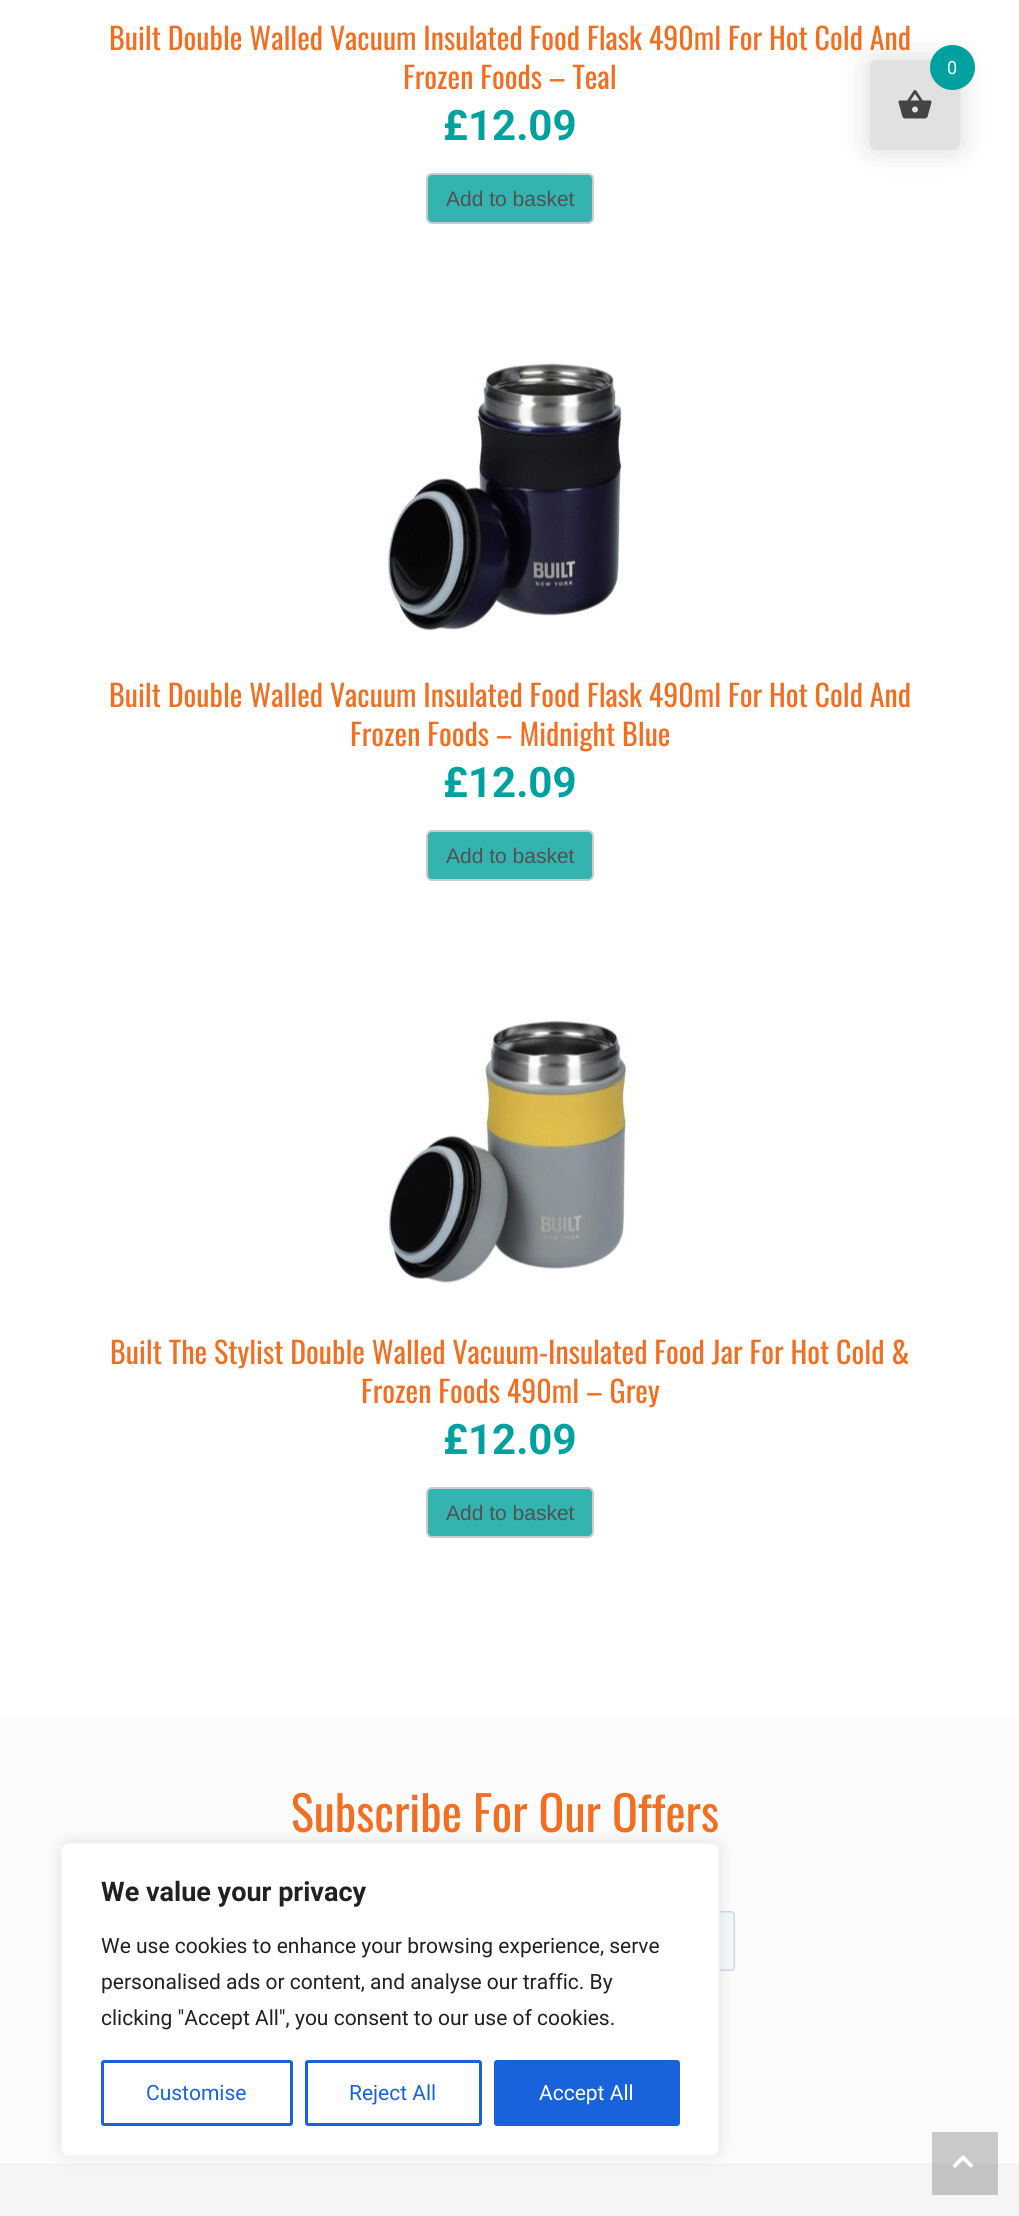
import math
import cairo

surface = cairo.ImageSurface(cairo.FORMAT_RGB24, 1019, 2216)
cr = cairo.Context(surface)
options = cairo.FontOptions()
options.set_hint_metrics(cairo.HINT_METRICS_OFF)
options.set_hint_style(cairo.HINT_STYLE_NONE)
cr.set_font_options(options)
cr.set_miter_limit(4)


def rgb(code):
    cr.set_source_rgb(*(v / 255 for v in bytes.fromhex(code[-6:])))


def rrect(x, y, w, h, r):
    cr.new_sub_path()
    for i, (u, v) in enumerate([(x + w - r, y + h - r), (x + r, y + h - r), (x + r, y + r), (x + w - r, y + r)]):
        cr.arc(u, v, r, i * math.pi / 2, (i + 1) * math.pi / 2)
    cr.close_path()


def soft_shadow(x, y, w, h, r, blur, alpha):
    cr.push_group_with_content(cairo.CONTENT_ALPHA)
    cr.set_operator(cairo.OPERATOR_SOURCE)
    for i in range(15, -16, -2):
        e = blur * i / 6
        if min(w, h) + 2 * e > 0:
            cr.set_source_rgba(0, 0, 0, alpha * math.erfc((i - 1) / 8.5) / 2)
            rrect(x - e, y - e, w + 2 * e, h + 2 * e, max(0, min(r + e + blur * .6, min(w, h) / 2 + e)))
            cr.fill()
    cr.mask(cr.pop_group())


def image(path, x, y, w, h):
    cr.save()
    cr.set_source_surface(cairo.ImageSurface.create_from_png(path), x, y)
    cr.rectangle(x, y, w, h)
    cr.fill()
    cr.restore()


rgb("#ffffff")
cr.paint()
rgb("#33b4b1")
rrect(427, 174, 166, 49, 5)
cr.fill_preserve()
rgb("#cccccc")
cr.stroke()
image("img/1.png", 385, 361, 239, 271)
rgb("#33b4b1")
rrect(427, 831, 166, 49, 5)
cr.fill_preserve()
rgb("#cccccc")
cr.stroke()
image("img/2.png", 384, 1017, 248, 269)
rgb("#33b4b1")
rrect(427, 1488, 166, 49, 5)
cr.fill_preserve()
rgb("#cccccc")
cr.stroke()
rgb("#000000")
soft_shadow(870, 60, 90, 90, 6, 15, 0.15)
rgb("#e1e1e1")
rrect(870, 60, 90, 90, 6)
cr.fill()
rgb("#00a19e")
cr.arc(952.5, 67.5, 22.5, 0, 2 * math.pi)
cr.fill()
image("img/3.png", 898, 90, 34, 29)
rgb("#fcfcfc")
cr.rectangle(0, 1718, 1019, 445)
cr.fill()
rgb("#cacaca")
cr.rectangle(932, 2132, 66, 31)
cr.fill()
image("img/4.png", 720, 1911, 15, 60)
rgb("#f5f5f5")
cr.rectangle(0, 2163, 1019, 53)
cr.fill()
rgb("#c4c4c4")
cr.rectangle(932, 2163, 66, 32)
cr.fill()
rgb("#acabab")
soft_shadow(60, 1841, 660, 315, 9, 7.5, 0.3)
rgb("#ffffff")
rrect(61, 1843, 658, 313, 8)
cr.fill_preserve()
rgb("#f4f4f4")
cr.stroke()
rrect(102.5, 2061.5, 189, 63, 1.5)
rgb("#1863dc")
cr.set_line_width(3)
cr.stroke()
rrect(306.5, 2061.5, 174, 63, 1.5)
cr.stroke()
rrect(495.5, 2061.5, 183, 63, 1.5)
cr.fill_preserve()
cr.stroke()
image("img/5.png", 952, 2155, 22, 13)
cr.select_font_face("Oswald")
cr.set_font_size(30)
rgb("#f26e21")
cr.move_to(109, 50)
cr.show_text("Built Double Walled Vacuum Insulated Food Flask 490ml For Hot Cold And")
cr.move_to(403, 89)
cr.show_text("Frozen Foods – Teal")
cr.select_font_face("Roboto", cairo.FONT_SLANT_NORMAL, cairo.FONT_WEIGHT_BOLD)
cr.set_font_size(42)
rgb("#00a19e")
cr.move_to(443, 140)
cr.show_text("£12.09")
cr.select_font_face("Liberation Sans")
cr.set_font_size(21)
rgb("#515150")
cr.move_to(446, 206)
cr.show_text("Add to basket")
cr.select_font_face("Oswald")
cr.set_font_size(30)
rgb("#f26e21")
cr.move_to(109, 707)
cr.show_text("Built Double Walled Vacuum Insulated Food Flask 490ml For Hot Cold And")
cr.move_to(350, 746)
cr.show_text("Frozen Foods – Midnight Blue")
cr.select_font_face("Roboto", cairo.FONT_SLANT_NORMAL, cairo.FONT_WEIGHT_BOLD)
cr.set_font_size(42)
rgb("#00a19e")
cr.move_to(443, 797)
cr.show_text("£12.09")
cr.select_font_face("Liberation Sans")
cr.set_font_size(21)
rgb("#515150")
cr.move_to(446, 863)
cr.show_text("Add to basket")
cr.select_font_face("Oswald")
cr.set_font_size(30)
rgb("#f26e21")
cr.move_to(110, 1364)
cr.show_text("Built The Stylist Double Walled Vacuum-Insulated Food Jar For Hot Cold &")
cr.move_to(361, 1403)
cr.show_text("Frozen Foods 490ml – Grey")
cr.select_font_face("Roboto", cairo.FONT_SLANT_NORMAL, cairo.FONT_WEIGHT_BOLD)
cr.set_font_size(42)
rgb("#00a19e")
cr.move_to(443, 1454)
cr.show_text("£12.09")
cr.select_font_face("Liberation Sans")
cr.set_font_size(21)
rgb("#515150")
cr.move_to(446, 1520)
cr.show_text("Add to basket")
cr.select_font_face("Roboto")
cr.set_font_size(18)
rgb("#ffffff")
cr.move_to(947, 74)
cr.show_text("0")
cr.select_font_face("Oswald")
cr.set_font_size(48)
rgb("#f26e21")
cr.move_to(291, 1832)
cr.show_text("Subscribe For Our Offers")
cr.select_font_face("Roboto", cairo.FONT_SLANT_NORMAL, cairo.FONT_WEIGHT_BOLD)
cr.set_font_size(27)
rgb("#212121")
cr.move_to(101, 1901)
cr.show_text("We value your privacy")
cr.select_font_face("Roboto")
cr.set_font_size(21)
for x, y, s in [
    (101, 1953, "We use cookies to enhance your browsing experience, serve"),
    (101, 1989, "personalised ads or content, and analyse our traffic. By"),
    (101, 2025, "clicking \"Accept All\", you consent to our use of cookies."),
]:
    cr.move_to(x, y)
    cr.show_text(s)
rgb("#1863dc")
cr.move_to(146, 2100)
cr.show_text("Customise")
cr.move_to(349, 2100)
cr.show_text("Reject All")
rgb("#ffffff")
cr.move_to(539, 2100)
cr.show_text("Accept All")
surface.write_to_png("page.png")
